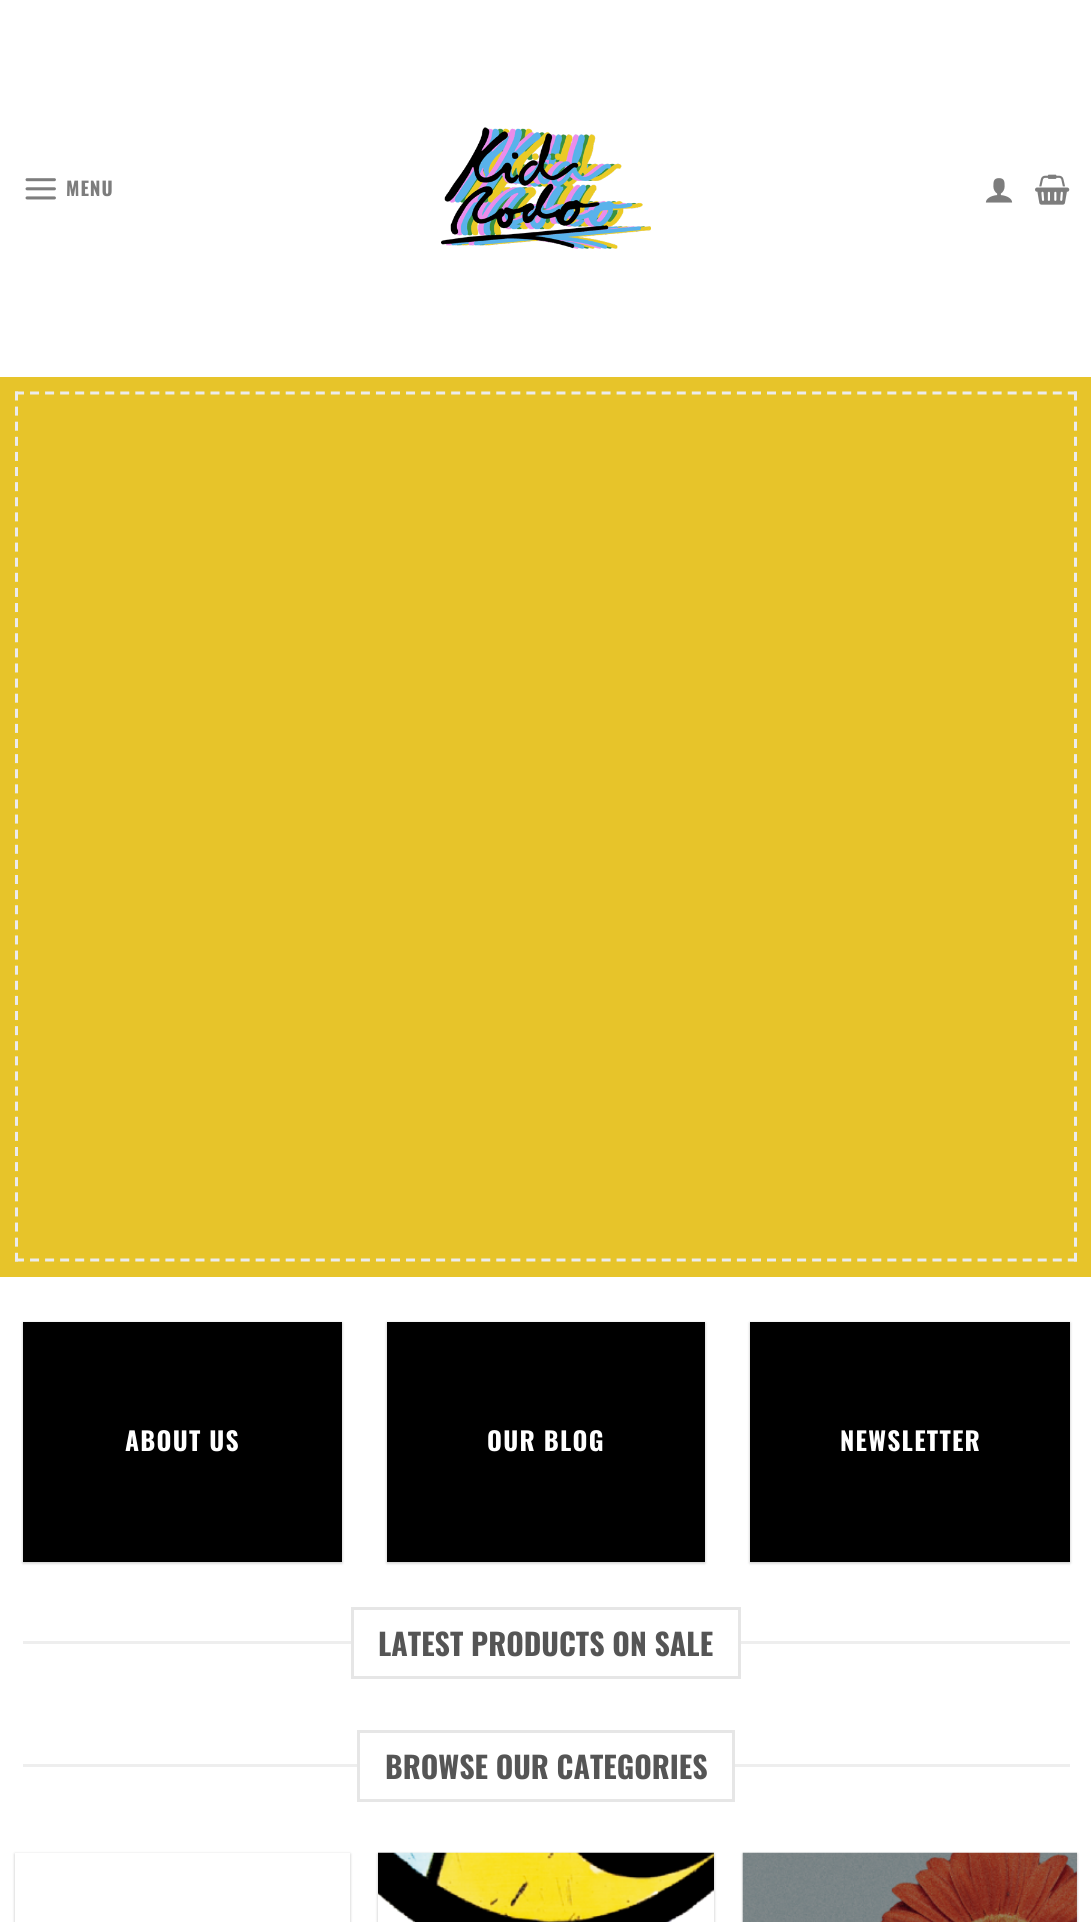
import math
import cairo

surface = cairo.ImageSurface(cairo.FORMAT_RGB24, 1091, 1922)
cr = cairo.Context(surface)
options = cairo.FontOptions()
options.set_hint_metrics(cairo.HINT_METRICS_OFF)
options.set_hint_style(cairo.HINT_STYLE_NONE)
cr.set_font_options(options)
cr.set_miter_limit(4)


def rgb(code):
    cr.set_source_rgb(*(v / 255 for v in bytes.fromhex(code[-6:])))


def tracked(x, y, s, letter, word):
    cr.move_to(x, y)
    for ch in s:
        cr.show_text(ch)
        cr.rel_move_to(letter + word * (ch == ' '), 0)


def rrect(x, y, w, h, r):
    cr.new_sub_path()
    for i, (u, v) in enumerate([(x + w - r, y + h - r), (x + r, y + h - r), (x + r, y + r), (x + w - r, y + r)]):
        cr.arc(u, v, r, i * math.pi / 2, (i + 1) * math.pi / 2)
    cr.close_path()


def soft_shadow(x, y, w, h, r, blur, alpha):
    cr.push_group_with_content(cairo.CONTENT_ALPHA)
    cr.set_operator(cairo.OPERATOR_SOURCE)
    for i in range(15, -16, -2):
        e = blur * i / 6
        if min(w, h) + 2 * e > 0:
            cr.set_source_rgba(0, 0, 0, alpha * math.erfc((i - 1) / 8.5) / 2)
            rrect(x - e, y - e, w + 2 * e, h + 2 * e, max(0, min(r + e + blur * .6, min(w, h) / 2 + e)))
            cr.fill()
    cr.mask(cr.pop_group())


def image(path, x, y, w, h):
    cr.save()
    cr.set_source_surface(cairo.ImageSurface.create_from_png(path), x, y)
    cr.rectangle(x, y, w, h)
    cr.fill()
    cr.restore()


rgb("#ffffff")
cr.paint()
image("img/1.png", 25, 178, 31, 22)
image("img/2.png", 441, 127, 210, 122)
image("img/3.png", 985, 178, 28, 25)
image("img/4.png", 1035, 174, 35, 31)
rgb("#e7c42a")
cr.rectangle(0, 377, 1091, 900)
cr.fill()
cr.new_path()
cr.move_to(15, 393)
cr.line_to(1077, 393)
rgb("#ececec")
cr.set_line_width(3)
cr.set_dash([9, 6.04])
cr.stroke()
cr.new_path()
cr.move_to(1075.5, 391.5)
cr.line_to(1075.5, 1261.5)
cr.set_dash([9, 6.11])
cr.stroke()
cr.new_path()
cr.move_to(15, 1260)
cr.line_to(1077, 1260)
cr.set_dash([9, 6.04])
cr.stroke()
cr.new_path()
cr.move_to(16.5, 391.5)
cr.line_to(16.5, 1261.5)
cr.set_dash([9, 6.11])
cr.stroke()
rgb("#000000")
soft_shadow(23, 1323, 319, 240, 0, 1.5, 0.24)
rgb("#000000")
cr.rectangle(23, 1322, 319, 240)
cr.fill()
rgb("#000000")
soft_shadow(387, 1323, 318, 240, 0, 1.5, 0.24)
rgb("#000000")
cr.rectangle(387, 1322, 318, 240)
cr.fill()
rgb("#000000")
soft_shadow(750, 1323, 320, 240, 0, 1.5, 0.24)
rgb("#000000")
cr.rectangle(750, 1322, 320, 240)
cr.fill()
rgb("#eeeeee")
cr.rectangle(23, 1641, 328, 3)
cr.fill()
cr.rectangle(352.5, 1608.5, 387, 69)
rgb("#e6e6e6")
cr.set_dash([])
cr.stroke()
rgb("#eeeeee")
cr.rectangle(741, 1641, 329, 3)
cr.fill()
cr.rectangle(23, 1764, 334, 3)
cr.fill()
cr.rectangle(358.5, 1731.5, 375, 69)
rgb("#e6e6e6")
cr.stroke()
rgb("#eeeeee")
cr.rectangle(735, 1764, 335, 3)
cr.fill()
rgb("#000000")
soft_shadow(15, 1854, 335, 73, 0, 1.5, 0.24)
rgb("#ffffff")
cr.rectangle(15, 1853, 335, 69)
cr.fill()
rgb("#000000")
soft_shadow(378, 1854, 336, 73, 0, 1.5, 0.24)
image("img/5.png", 378, 1852, 336, 70)
soft_shadow(743, 1854, 334, 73, 0, 1.5, 0.24)
image("img/6.png", 742, 1852, 335, 70)
cr.select_font_face("Oswald", cairo.FONT_SLANT_NORMAL, cairo.FONT_WEIGHT_BOLD)
cr.set_font_size(19)
rgb("#7d7d7d")
tracked(66, 196, "MENU", 1, 0)
cr.set_font_size(25.5)
rgb("#ffffff")
for x, y, s in [
    (125, 1451, "ABOUT US"),
    (487, 1451, "OUR BLOG"),
    (840, 1451, "NEWSLETTER"),
]:
    tracked(x, y, s, 1.25, 0)
cr.set_font_size(30)
rgb("#555555")
cr.move_to(378, 1656)
cr.show_text("LATEST PRODUCTS ON SALE")
cr.move_to(385, 1779)
cr.show_text("BROWSE OUR CATEGORIES")
surface.write_to_png("page.png")
